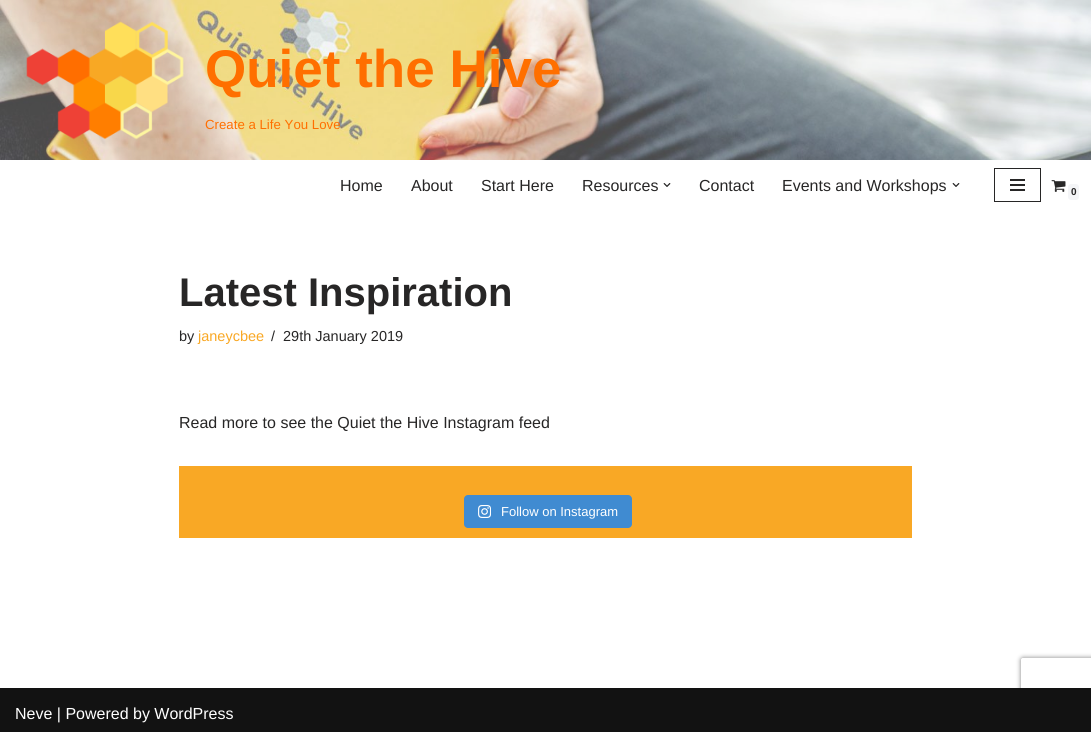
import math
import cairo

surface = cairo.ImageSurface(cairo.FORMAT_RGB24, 1091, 732)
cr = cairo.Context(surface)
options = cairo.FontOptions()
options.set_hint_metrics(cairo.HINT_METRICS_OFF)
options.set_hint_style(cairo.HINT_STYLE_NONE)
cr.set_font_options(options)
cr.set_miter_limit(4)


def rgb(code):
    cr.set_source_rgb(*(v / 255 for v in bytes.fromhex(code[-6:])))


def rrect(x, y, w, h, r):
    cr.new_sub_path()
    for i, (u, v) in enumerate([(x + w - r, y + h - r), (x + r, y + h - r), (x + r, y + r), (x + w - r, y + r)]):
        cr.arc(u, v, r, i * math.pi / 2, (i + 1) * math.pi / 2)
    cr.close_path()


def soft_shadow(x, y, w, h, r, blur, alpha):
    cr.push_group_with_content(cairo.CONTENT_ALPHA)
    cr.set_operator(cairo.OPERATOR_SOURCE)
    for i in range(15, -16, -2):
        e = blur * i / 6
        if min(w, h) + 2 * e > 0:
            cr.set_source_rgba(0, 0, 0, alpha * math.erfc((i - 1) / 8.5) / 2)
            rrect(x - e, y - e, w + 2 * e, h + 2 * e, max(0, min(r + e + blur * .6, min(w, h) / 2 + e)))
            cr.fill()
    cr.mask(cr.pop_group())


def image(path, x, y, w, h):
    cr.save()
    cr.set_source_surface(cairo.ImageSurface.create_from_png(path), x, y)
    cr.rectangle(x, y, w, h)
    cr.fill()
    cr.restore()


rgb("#ffffff")
cr.paint()
image("img/1.png", 0, 0, 1091, 160)
image("img/2.png", 26, 21, 158, 119)
image("img/3.png", 663, 183, 8, 4)
image("img/3.png", 952, 183, 8, 4)
cr.rectangle(994.5, 168.5, 46, 33)
rgb("#272626")
cr.set_line_width(1)
cr.stroke()
for x, y, w, h, color in [
    (1010, 179, 15, 2, "#272626"),
    (1010, 184, 15, 2, "#272626"),
    (1010, 189, 15, 2, "#272626"),
]:
    rgb(color)
    cr.rectangle(x, y, w, h)
    cr.fill()
image("img/4.png", 1051, 180, 15, 12)
rgb("#f4f5f7")
rrect(1068, 184, 11, 16, 3)
cr.fill()
rgb("#f9a825")
cr.rectangle(179, 466, 733, 72)
cr.fill()
rgb("#408bd1")
rrect(464, 495, 168, 33, 4)
cr.fill()
image("img/5.png", 478, 505, 13, 13)
cr.save()
cr.set_fill_rule(cairo.FILL_RULE_EVEN_ODD)
cr.new_path()
cr.move_to(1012, 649)
cr.line_to(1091, 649)
cr.line_to(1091, 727)
cr.line_to(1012, 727)
cr.close_path()
cr.move_to(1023, 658)
cr.line_to(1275, 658)
cr.curve_to(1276, 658, 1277, 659, 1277, 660)
cr.line_to(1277, 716)
cr.curve_to(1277, 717, 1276, 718, 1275, 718)
cr.line_to(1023, 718)
cr.curve_to(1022, 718, 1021, 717, 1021, 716)
cr.line_to(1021, 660)
cr.curve_to(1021, 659, 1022, 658, 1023, 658)
cr.close_path()
cr.clip()
rgb("#808080")
soft_shadow(1021, 658, 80, 60, 2, 2.5, 1)
cr.restore()
rgb("#121212")
cr.rectangle(0, 688, 1091, 44)
cr.fill()
cr.select_font_face("Liberation Sans", cairo.FONT_SLANT_NORMAL, cairo.FONT_WEIGHT_BOLD)
cr.set_font_size(53)
rgb("#ff6f00")
cr.move_to(205, 87)
cr.show_text("Quiet the Hive")
cr.select_font_face("Liberation Sans")
cr.set_font_size(13.25)
cr.move_to(205, 129)
cr.show_text("Create a Life You Love")
cr.set_font_size(16)
rgb("#272626")
for x, y, s in [
    (340, 191, "Home"),
    (411, 191, "About"),
    (481, 191, "Start Here"),
    (582, 191, "Resources"),
    (699, 191, "Contact"),
    (782, 191, "Events and Workshops"),
]:
    cr.move_to(x, y)
    cr.show_text(s)
cr.select_font_face("Liberation Sans", cairo.FONT_SLANT_NORMAL, cairo.FONT_WEIGHT_BOLD)
cr.set_font_size(10)
cr.move_to(1071, 195)
cr.show_text("0")
cr.set_font_size(40)
cr.move_to(179, 306)
cr.show_text("Latest Inspiration")
cr.select_font_face("Liberation Sans")
cr.set_font_size(14.5)
cr.move_to(179, 341)
cr.show_text("by")
rgb("#f9a825")
cr.move_to(198, 341)
cr.show_text("janeycbee")
rgb("#272626")
cr.move_to(271, 341)
cr.show_text("/")
cr.move_to(283, 341)
cr.show_text("29th January 2019")
cr.set_font_size(16)
cr.move_to(179, 428)
cr.show_text("Read more to see the Quiet the Hive Instagram feed")
cr.set_font_size(13)
rgb("#ffffff")
cr.move_to(501, 516)
cr.show_text("Follow on Instagram")
cr.set_font_size(16)
cr.move_to(15, 719)
cr.show_text("Neve | Powered by WordPress")
surface.write_to_png("page.png")
